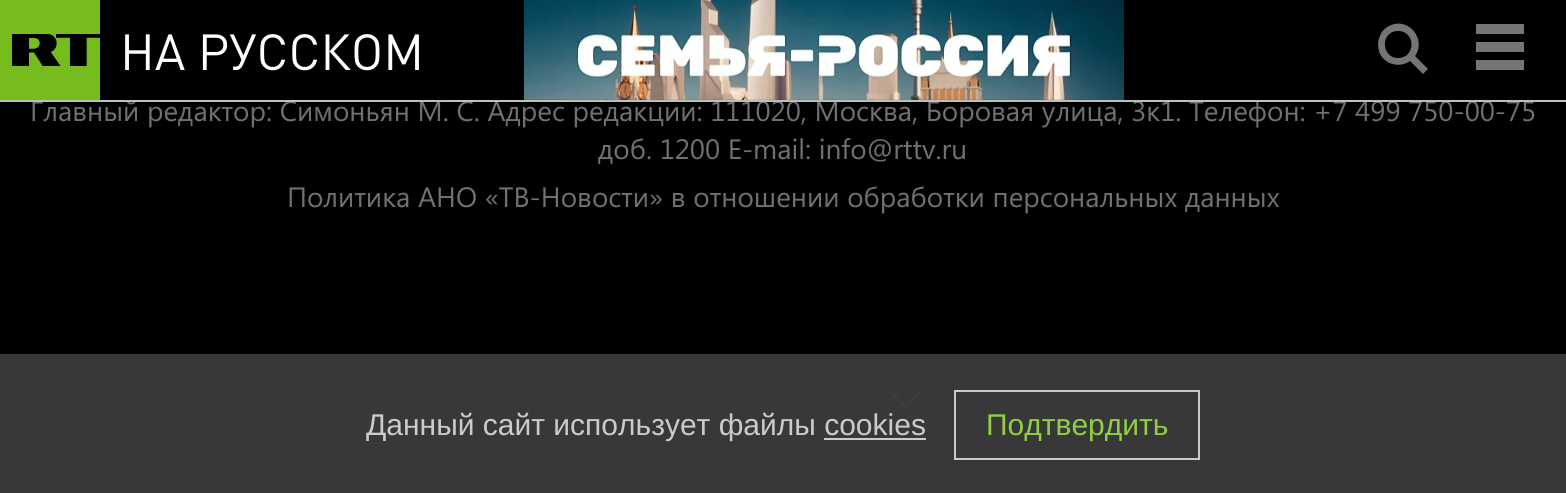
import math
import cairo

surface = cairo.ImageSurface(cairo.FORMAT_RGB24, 1566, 493)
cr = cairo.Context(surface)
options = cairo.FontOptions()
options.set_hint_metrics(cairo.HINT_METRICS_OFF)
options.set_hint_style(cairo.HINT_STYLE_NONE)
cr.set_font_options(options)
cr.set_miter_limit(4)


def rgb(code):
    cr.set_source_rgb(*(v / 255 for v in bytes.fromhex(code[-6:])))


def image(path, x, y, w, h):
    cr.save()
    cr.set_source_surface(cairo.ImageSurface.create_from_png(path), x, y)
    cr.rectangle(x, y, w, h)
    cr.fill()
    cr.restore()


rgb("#000000")
cr.paint()
rgb("#383838")
cr.rectangle(0, 354, 1566, 139)
cr.fill()
rgb("#77bc1f")
cr.rectangle(0, 0, 100, 100)
cr.fill()
image("img/1.png", 12, 34, 88, 32)
image("img/2.png", 524, 0, 600, 100)
rgb("#757575")
cr.new_path()
cr.move_to(1428, 69)
cr.line_to(1423, 74)
cr.line_to(1410, 61)
cr.curve_to(1400, 68, 1386, 65, 1380, 54)
cr.curve_to(1378, 49, 1377, 42, 1380, 36)
cr.curve_to(1381, 32, 1385, 28, 1389, 26)
cr.curve_to(1408, 16, 1427, 39, 1415, 56)
cr.close_path()
cr.move_to(1398, 31)
cr.curve_to(1380, 31, 1381, 58, 1398, 58)
cr.curve_to(1416, 58, 1416, 31, 1398, 31)
cr.close_path()
cr.fill()
for x, y, w, h, color in [
    (1476, 60, 48, 10, "#757575"),
    (1476, 24, 48, 10, "#757575"),
    (1476, 42, 48, 10, "#757575"),
]:
    rgb(color)
    cr.rectangle(x, y, w, h)
    cr.fill()
rgb("#3c3e40")
cr.new_path()
cr.move_to(922.5, 391)
cr.line_to(905.5, 408)
cr.line_to(905.5, 405.5)
cr.line_to(919.5, 391)
cr.close_path()
cr.fill()
cr.new_path()
cr.move_to(905.5, 408)
cr.line_to(888.5, 391)
cr.line_to(891, 391)
cr.line_to(905.5, 405.5)
cr.close_path()
cr.fill()
rgb("#cbcbcb")
cr.rectangle(824, 438, 102, 2)
cr.fill()
cr.rectangle(955, 391, 244, 68)
cr.stroke()
cr.select_font_face("DIN")
cr.set_font_size(50)
rgb("#ffffff")
cr.move_to(120, 70)
cr.show_text("НА РУССКОМ")
cr.select_font_face("Segoe UI")
cr.set_font_size(28)
rgb("#6f7073")
cr.move_to(30, 121)
cr.show_text("Главный редактор: Симоньян М. С. Адрес редакции: 111020, Москва, Боровая улица, 3к1. Телефон: +7 499 750-00-75")
rgb("#bebebe")
cr.rectangle(0, 100, 1566, 2)
cr.fill()
rgb("#6f7073")
cr.move_to(598, 159)
cr.show_text("доб. 1200 E-mail: info@rttv.ru")
cr.move_to(287, 207)
cr.show_text("Политика АНО «ТВ-Новости» в отношении обработки персональных данных")
cr.select_font_face("Liberation Sans")
cr.set_font_size(30)
rgb("#cbcbcb")
cr.move_to(366, 435)
cr.show_text("Данный сайт использует файлы cookies")
rgb("#92ce45")
cr.move_to(986, 435)
cr.show_text("Подтвердить")
surface.write_to_png("page.png")
